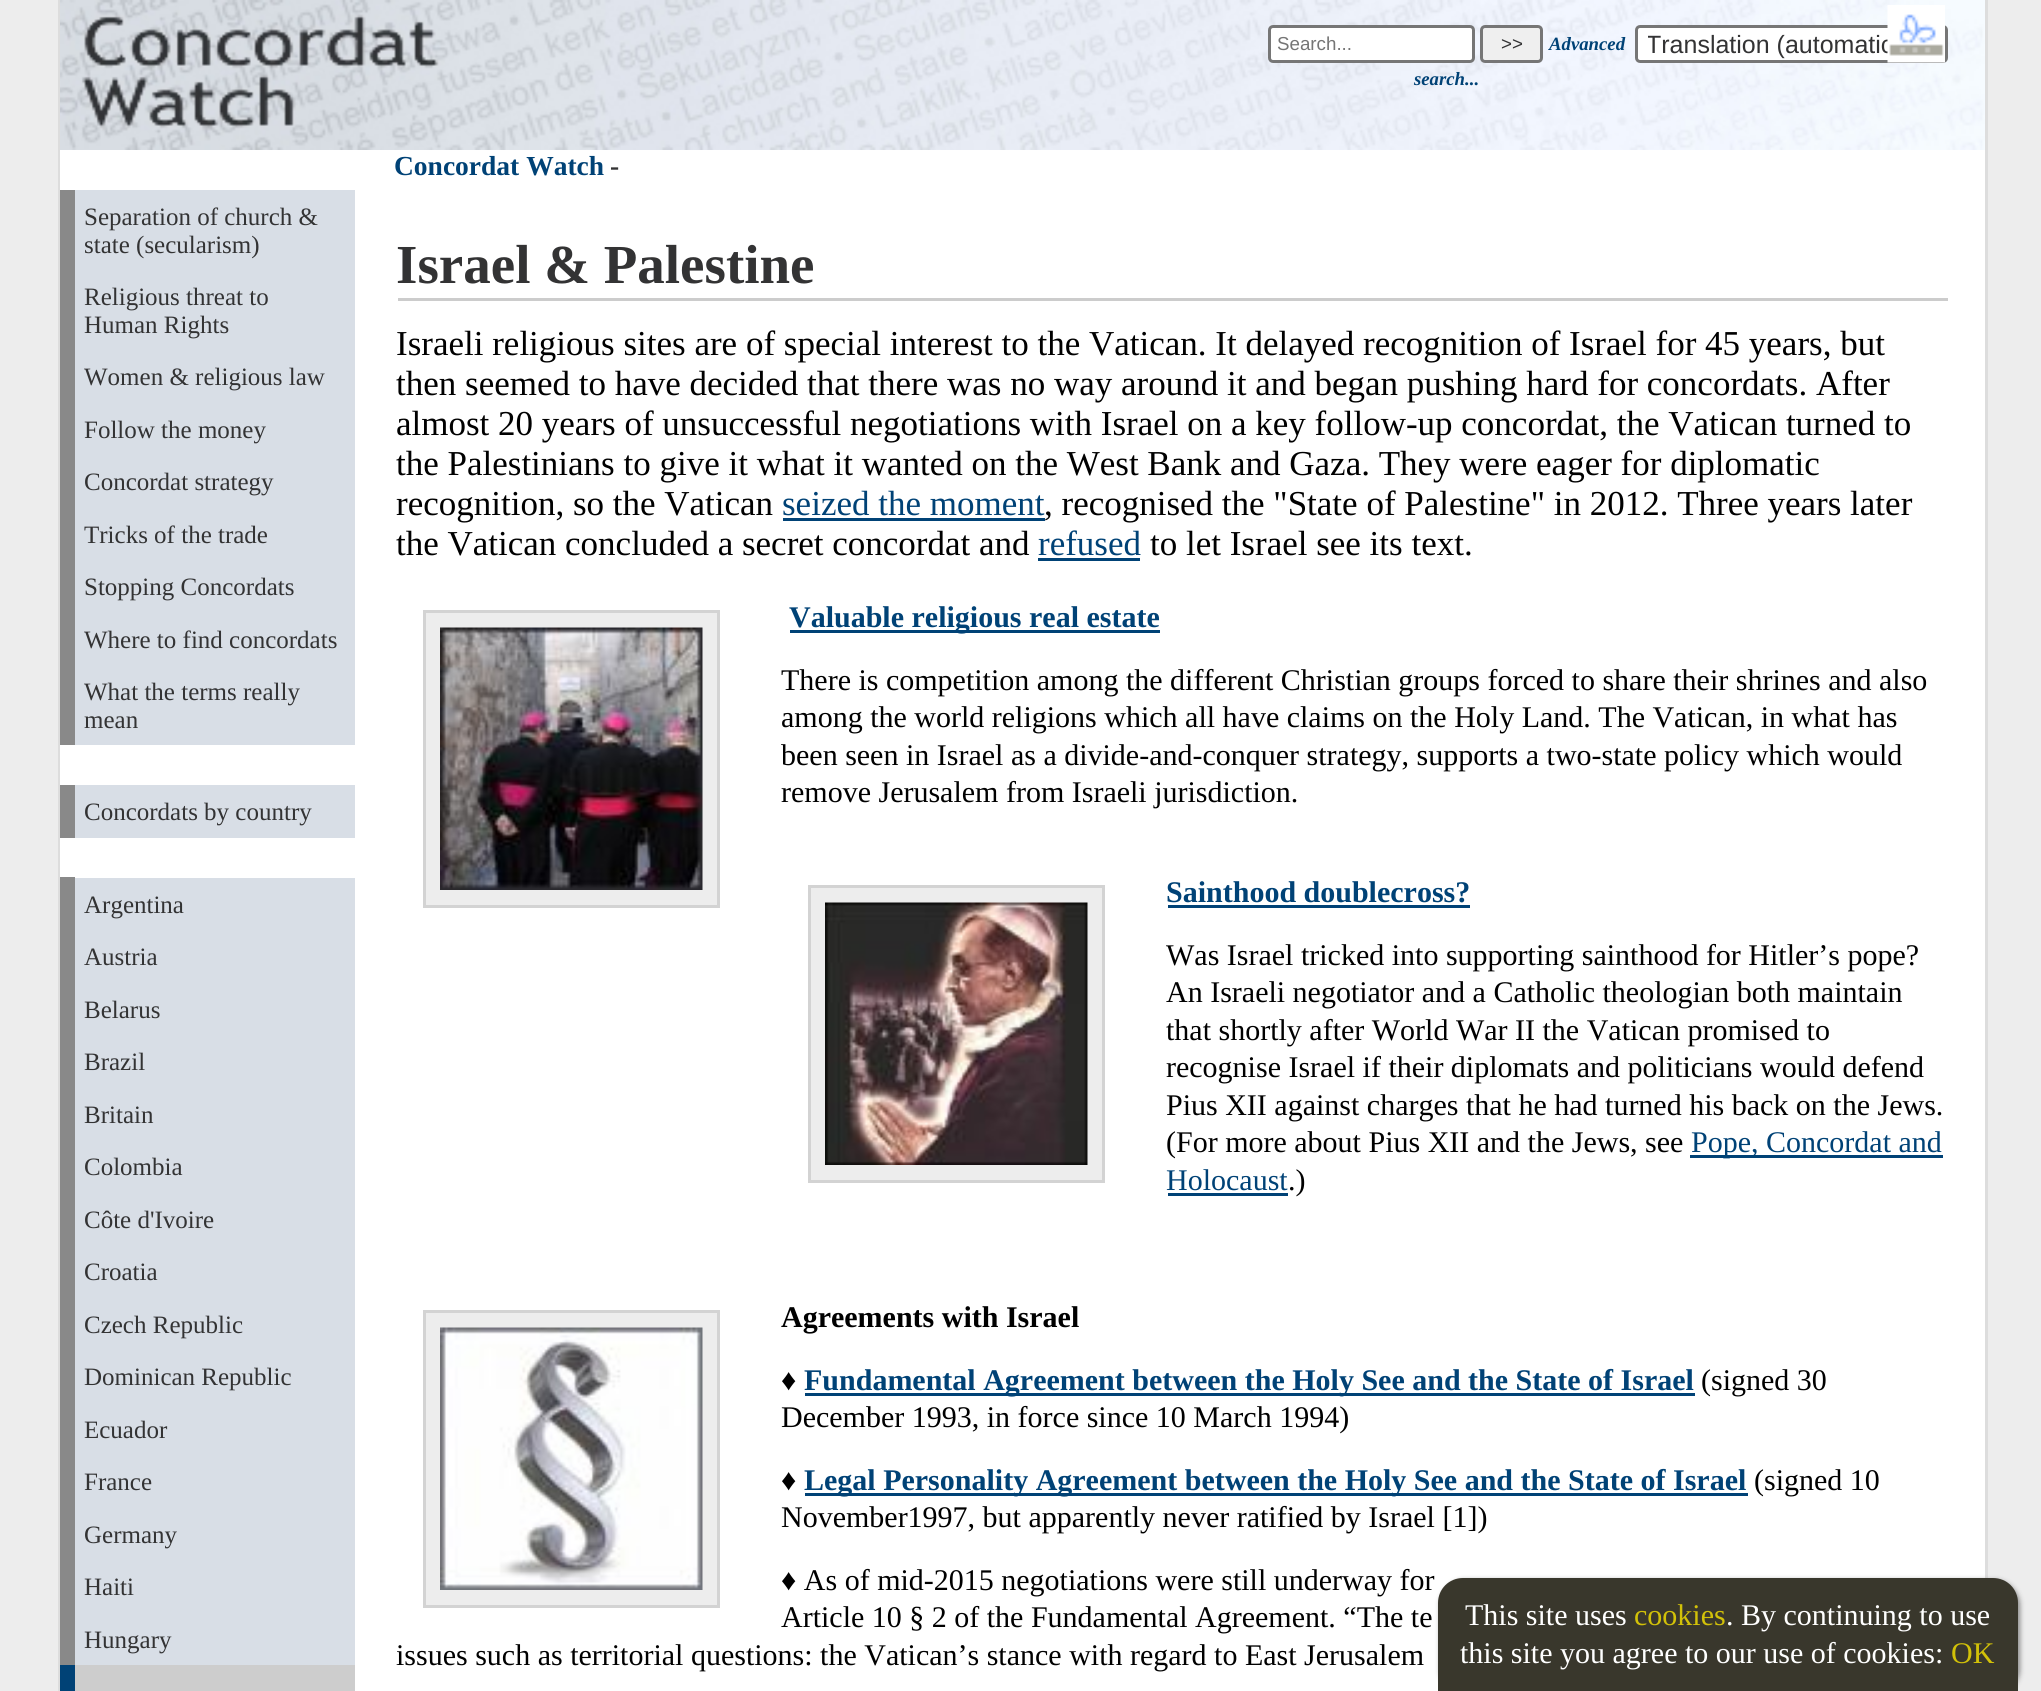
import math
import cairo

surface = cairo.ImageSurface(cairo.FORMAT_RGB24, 2041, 1691)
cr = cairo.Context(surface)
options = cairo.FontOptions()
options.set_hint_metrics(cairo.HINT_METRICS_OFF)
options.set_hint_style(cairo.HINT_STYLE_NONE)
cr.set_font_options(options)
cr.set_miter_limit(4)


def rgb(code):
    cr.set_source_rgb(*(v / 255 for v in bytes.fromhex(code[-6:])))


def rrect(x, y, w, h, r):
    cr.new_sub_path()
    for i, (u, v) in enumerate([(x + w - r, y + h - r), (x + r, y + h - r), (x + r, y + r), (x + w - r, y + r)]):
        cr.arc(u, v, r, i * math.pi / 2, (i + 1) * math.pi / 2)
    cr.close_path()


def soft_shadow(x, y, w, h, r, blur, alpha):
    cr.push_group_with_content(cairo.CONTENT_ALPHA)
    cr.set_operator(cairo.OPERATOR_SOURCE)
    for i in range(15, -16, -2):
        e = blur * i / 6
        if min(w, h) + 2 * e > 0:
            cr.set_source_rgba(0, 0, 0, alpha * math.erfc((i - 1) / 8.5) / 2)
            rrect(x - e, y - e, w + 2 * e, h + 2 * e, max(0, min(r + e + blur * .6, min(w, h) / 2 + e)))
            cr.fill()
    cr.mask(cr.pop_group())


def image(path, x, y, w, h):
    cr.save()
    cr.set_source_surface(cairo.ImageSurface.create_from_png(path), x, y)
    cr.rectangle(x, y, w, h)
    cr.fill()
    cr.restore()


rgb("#ededed")
cr.paint()
for x, y, w, h, color in [
    (60, 150, 1925, 1541, "#ffffff"),
    (1985, 0, 3, 1578, "#dddddd"),
    (58, 0, 2, 1691, "#dddddd"),
]:
    rgb(color)
    cr.rectangle(x, y, w, h)
    cr.fill()
image("img/2.png", 60, 0, 1925, 150)
rgb("#ffffff")
rrect(1269.5, 26.5, 204, 35, 3.5)
cr.fill_preserve()
rgb("#767676")
cr.set_line_width(3)
cr.stroke()
rgb("#efefef")
rrect(1481.5, 26.5, 60, 35, 3.5)
cr.fill_preserve()
rgb("#767676")
cr.stroke()
rgb("#ffffff")
rrect(1636.5, 26.5, 310, 35, 3.5)
cr.fill_preserve()
rgb("#767676")
cr.stroke()
for x, y, w, h, color in [
    (75, 190, 280, 555, "#d8dee6"),
    (60, 190, 15, 555, "#898989"),
    (75, 785, 280, 53, "#d8dee6"),
    (60, 785, 15, 53, "#898989"),
    (75, 878, 280, 787, "#d8dee6"),
    (60, 877, 15, 788, "#898989"),
    (75, 1665, 280, 26, "#cdcdcd"),
    (60, 1665, 15, 26, "#004276"),
    (398, 298, 1550, 3, "#cccccc"),
    (783, 518, 262, 3, "#004276"),
    (1038, 558, 102, 3, "#004276"),
]:
    rgb(color)
    cr.rectangle(x, y, w, h)
    cr.fill()
rgb("#ededed")
cr.rectangle(424.5, 611.5, 294, 295)
cr.fill_preserve()
rgb("#d3d3d3")
cr.stroke()
image("img/3.png", 440, 627, 263, 263)
rgb("#004276")
cr.rectangle(790, 630, 370, 3)
cr.fill()
rgb("#ededed")
cr.rectangle(809.5, 886.5, 294, 295)
cr.fill_preserve()
rgb("#d3d3d3")
cr.stroke()
image("img/4.png", 825, 902, 263, 263)
for x, y, w, h, color in [
    (1168, 905, 302, 3, "#004276"),
    (1690, 1155, 253, 3, "#004276"),
    (1168, 1193, 120, 3, "#004276"),
]:
    rgb(color)
    cr.rectangle(x, y, w, h)
    cr.fill()
rgb("#ededed")
cr.rectangle(424.5, 1311.5, 294, 295)
cr.fill_preserve()
rgb("#d3d3d3")
cr.stroke()
image("img/5.png", 440, 1327, 263, 263)
rgb("#004276")
cr.rectangle(805, 1393, 890, 3)
cr.fill()
cr.rectangle(805, 1493, 943, 3)
cr.fill()
rgb("#888888")
soft_shadow(1440, 1580, 580, 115, 25, 2.5, 1)
rgb("#39372c")
cr.new_path()
cr.move_to(1463, 1578)
cr.line_to(1993, 1578)
cr.curve_to(2007, 1578, 2018, 1589, 2018, 1603)
cr.line_to(2018, 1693)
cr.line_to(1438, 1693)
cr.line_to(1438, 1603)
cr.curve_to(1438, 1589, 1449, 1578, 1463, 1578)
cr.close_path()
cr.fill()
cr.select_font_face("Liberation Sans")
cr.set_font_size(18.75)
rgb("#757575")
cr.move_to(1277, 50)
cr.show_text("Search...")
rgb("#333334")
cr.move_to(1501, 50)
cr.show_text(">>")
cr.select_font_face("Liberation Serif", cairo.FONT_SLANT_ITALIC, cairo.FONT_WEIGHT_BOLD)
rgb("#004276")
cr.move_to(1549, 50)
cr.show_text("Advanced")
cr.move_to(1414, 85)
cr.show_text("search...")
cr.save()
cr.rectangle(1648, 28, 257, 32)
cr.clip()
cr.select_font_face("Liberation Sans")
cr.set_font_size(25)
rgb("#333334")
cr.move_to(1646, 53)
cr.show_text("Translation (automatic")
cr.restore()
image("img/1.png", 1887, 5, 58, 58)
cr.select_font_face("Liberation Serif")
cr.set_font_size(25)
rgb("#333334")
for x, y, s in [
    (84, 225, "Separation of church &"),
    (84, 253, "state (secularism)"),
    (84, 305, "Religious threat to"),
    (84, 333, "Human Rights"),
    (84, 385, "Women & religious law"),
    (84, 438, "Follow the money"),
    (84, 490, "Concordat strategy"),
    (84, 543, "Tricks of the trade"),
    (84, 595, "Stopping Concordats"),
    (84, 648, "Where to find concordats"),
    (84, 700, "What the terms really"),
    (84, 728, "mean"),
    (84, 820, "Concordats by country"),
    (84, 913, "Argentina"),
    (84, 965, "Austria"),
    (84, 1018, "Belarus"),
    (84, 1070, "Brazil"),
    (84, 1123, "Britain"),
    (84, 1175, "Colombia"),
    (84, 1228, "Côte d'Ivoire"),
    (84, 1280, "Croatia"),
    (84, 1333, "Czech Republic"),
    (84, 1385, "Dominican Republic"),
    (84, 1438, "Ecuador"),
    (84, 1490, "France"),
    (84, 1543, "Germany"),
    (84, 1595, "Haiti"),
    (84, 1648, "Hungary"),
]:
    cr.move_to(x, y)
    cr.show_text(s)
cr.select_font_face("Liberation Serif", cairo.FONT_SLANT_NORMAL, cairo.FONT_WEIGHT_BOLD)
cr.set_font_size(27.5)
rgb("#004276")
cr.move_to(394, 175)
cr.show_text("Concordat Watch")
rgb("#333334")
cr.move_to(610, 175)
cr.show_text("-")
cr.set_font_size(55)
cr.move_to(396, 283)
cr.show_text("Israel & Palestine")
cr.select_font_face("Liberation Serif")
cr.set_font_size(35)
rgb("#000000")
for x, y, s in [
    (396, 355, "Israeli religious sites are of special interest to the Vatican. It delayed recognition of Israel for 45 years, but"),
    (396, 395, "then seemed to have decided that there was no way around it and began pushing hard for concordats. After"),
    (396, 435, "almost 20 years of unsuccessful negotiations with Israel on a key follow-up concordat, the Vatican turned to"),
    (396, 475, "the Palestinians to give it what it wanted on the West Bank and Gaza. They were eager for diplomatic"),
    (396, 515, "recognition, so the Vatican"),
]:
    cr.move_to(x, y)
    cr.show_text(s)
rgb("#004276")
cr.move_to(782, 515)
cr.show_text("seized the moment")
rgb("#000000")
cr.move_to(1044, 515)
cr.show_text(", recognised the \"State of Palestine\" in 2012. Three years later")
cr.move_to(396, 555)
cr.show_text("the Vatican concluded a secret concordat and")
rgb("#004276")
cr.move_to(1038, 555)
cr.show_text("refused")
rgb("#000000")
cr.move_to(1150, 555)
cr.show_text("to let Israel see its text.")
cr.select_font_face("Liberation Serif", cairo.FONT_SLANT_NORMAL, cairo.FONT_WEIGHT_BOLD)
cr.set_font_size(30)
rgb("#004276")
cr.move_to(789, 627)
cr.show_text("Valuable religious real estate")
cr.select_font_face("Liberation Serif")
rgb("#000000")
for x, y, s in [
    (781, 690, "There is competition among the different Christian groups forced to share their shrines and also"),
    (781, 727, "among the world religions which all have claims on the Holy Land. The Vatican, in what has"),
    (781, 765, "been seen in Israel as a divide-and-conquer strategy, supports a two-state policy which would"),
    (781, 802, "remove Jerusalem from Israeli jurisdiction."),
]:
    cr.move_to(x, y)
    cr.show_text(s)
cr.select_font_face("Liberation Serif", cairo.FONT_SLANT_NORMAL, cairo.FONT_WEIGHT_BOLD)
rgb("#004276")
cr.move_to(1166, 902)
cr.show_text("Sainthood doublecross?")
cr.select_font_face("Liberation Serif")
rgb("#000000")
for x, y, s in [
    (1166, 965, "Was Israel tricked into supporting sainthood for Hitler’s pope?"),
    (1166, 1002, "An Israeli negotiator and a Catholic theologian both maintain"),
    (1166, 1040, "that shortly after World War II the Vatican promised to"),
    (1166, 1077, "recognise Israel if their diplomats and politicians would defend"),
    (1166, 1115, "Pius XII against charges that he had turned his back on the Jews."),
    (1166, 1152, "(For more about Pius XII and the Jews, see"),
]:
    cr.move_to(x, y)
    cr.show_text(s)
rgb("#004276")
cr.move_to(1691, 1152)
cr.show_text("Pope, Concordat and")
cr.move_to(1166, 1190)
cr.show_text("Holocaust")
rgb("#000000")
cr.move_to(1288, 1190)
cr.show_text(".)")
cr.select_font_face("Liberation Serif", cairo.FONT_SLANT_NORMAL, cairo.FONT_WEIGHT_BOLD)
cr.move_to(781, 1327)
cr.show_text("Agreements with Israel")
cr.select_font_face("Liberation Serif")
cr.move_to(781, 1390)
cr.show_text("♦")
cr.select_font_face("Liberation Serif", cairo.FONT_SLANT_NORMAL, cairo.FONT_WEIGHT_BOLD)
rgb("#004276")
cr.move_to(804, 1390)
cr.show_text("Fundamental Agreement between the Holy See and the State of Israel")
cr.select_font_face("Liberation Serif")
rgb("#000000")
for x, y, s in [
    (1701, 1390, "(signed 30"),
    (781, 1427, "December 1993, in force since 10 March 1994)"),
    (781, 1490, "♦"),
]:
    cr.move_to(x, y)
    cr.show_text(s)
cr.select_font_face("Liberation Serif", cairo.FONT_SLANT_NORMAL, cairo.FONT_WEIGHT_BOLD)
rgb("#004276")
cr.move_to(804, 1490)
cr.show_text("Legal Personality Agreement between the Holy See and the State of Israel")
cr.select_font_face("Liberation Serif")
rgb("#000000")
for x, y, s in [
    (1754, 1490, "(signed 10"),
    (781, 1527, "November1997, but apparently never ratified by Israel [1])"),
    (781, 1590, "♦ As of mid-2015 negotiations were still underway for"),
    (781, 1627, "Article 10 § 2 of the Fundamental Agreement. “The te"),
    (396, 1665, "issues such as territorial questions: the Vatican’s stance with regard to East Jerusalem"),
]:
    cr.move_to(x, y)
    cr.show_text(s)
rgb("#ffffff")
cr.move_to(1465, 1625)
cr.show_text("This site uses")
rgb("#d2c108")
cr.move_to(1634, 1625)
cr.show_text("cookies")
rgb("#ffffff")
cr.move_to(1726, 1625)
cr.show_text(". By continuing to use")
cr.move_to(1460, 1663)
cr.show_text("this site you agree to our use of cookies:")
rgb("#d2c108")
cr.move_to(1951, 1663)
cr.show_text("OK")
surface.write_to_png("page.png")
